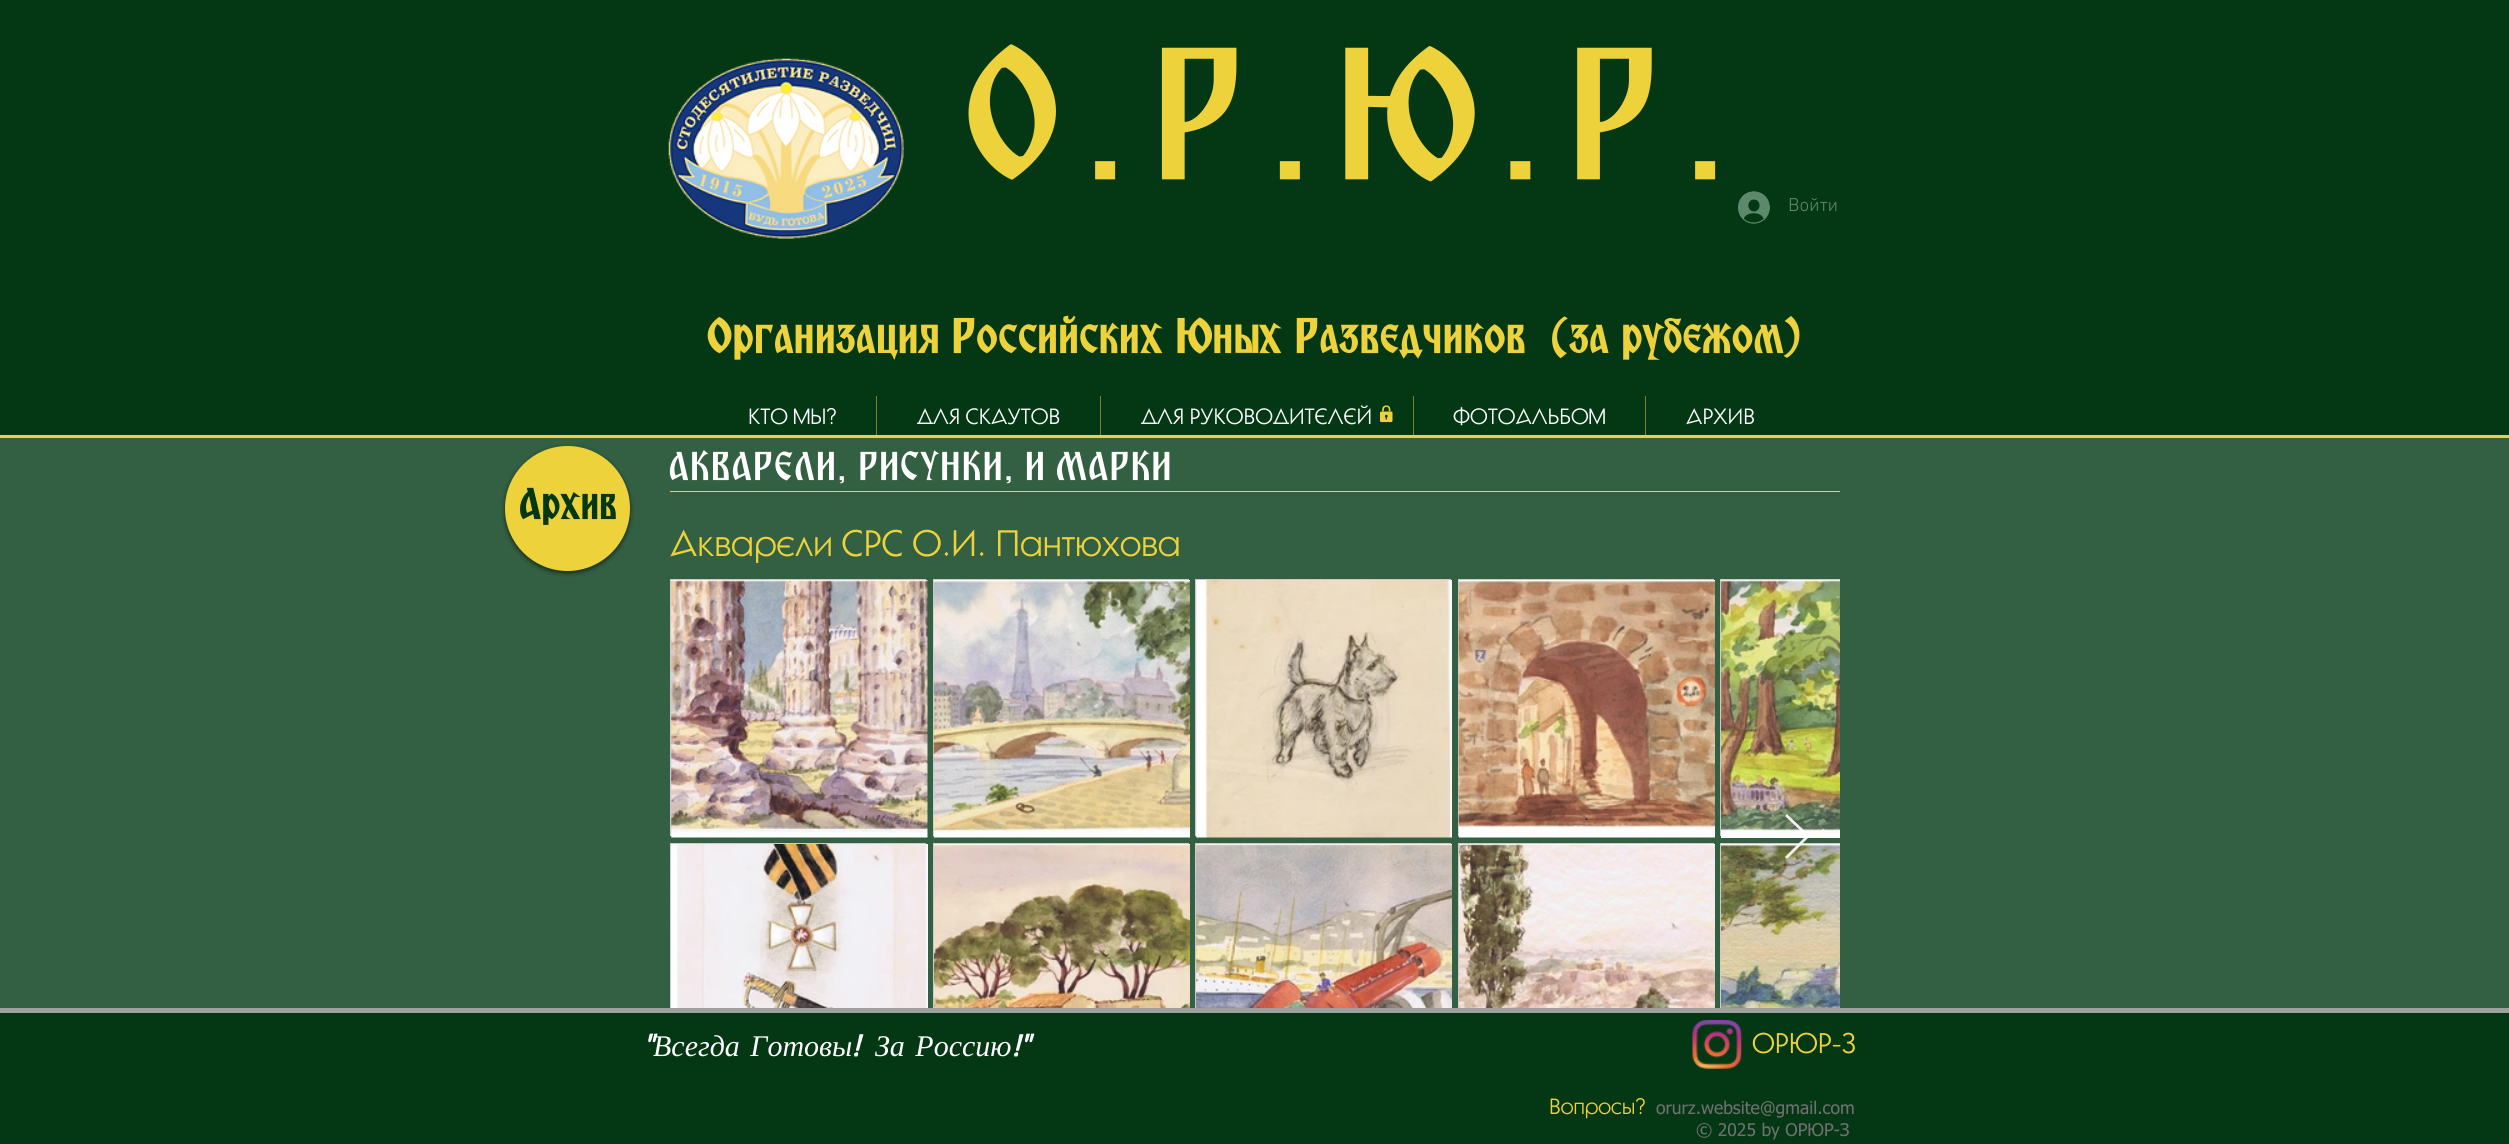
import math
import cairo

surface = cairo.ImageSurface(cairo.FORMAT_RGB24, 2509, 1144)
cr = cairo.Context(surface)
options = cairo.FontOptions()
options.set_hint_metrics(cairo.HINT_METRICS_OFF)
options.set_hint_style(cairo.HINT_STYLE_NONE)
cr.set_font_options(options)
cr.set_miter_limit(4)


def rgb(code):
    cr.set_source_rgb(*(v / 255 for v in bytes.fromhex(code[-6:])))


def tracked(x, y, s, letter, word):
    cr.move_to(x, y)
    for ch in s:
        cr.show_text(ch)
        cr.rel_move_to(letter + word * (ch == ' '), 0)


def rrect(x, y, w, h, r):
    cr.new_sub_path()
    for i, (u, v) in enumerate([(x + w - r, y + h - r), (x + r, y + h - r), (x + r, y + r), (x + w - r, y + r)]):
        cr.arc(u, v, r, i * math.pi / 2, (i + 1) * math.pi / 2)
    cr.close_path()


def soft_shadow(x, y, w, h, r, blur, alpha):
    cr.push_group_with_content(cairo.CONTENT_ALPHA)
    cr.set_operator(cairo.OPERATOR_SOURCE)
    for i in range(15, -16, -2):
        e = blur * i / 6
        if min(w, h) + 2 * e > 0:
            cr.set_source_rgba(0, 0, 0, alpha * math.erfc((i - 1) / 8.5) / 2)
            rrect(x - e, y - e, w + 2 * e, h + 2 * e, max(0, min(r + e + blur * .6, min(w, h) / 2 + e)))
            cr.fill()
    cr.mask(cr.pop_group())


def image(path, x, y, w, h):
    cr.save()
    cr.set_source_surface(cairo.ImageSurface.create_from_png(path), x, y)
    cr.rectangle(x, y, w, h)
    cr.fill()
    cr.restore()


rgb("#336042")
cr.paint()
rgb("#043815")
cr.rectangle(0, 0, 2509, 435)
cr.fill()
rgb("#edd23b")
cr.rectangle(0, 435, 2509, 3)
cr.fill()
image("img/1.png", 668, 58, 236, 181)
image("img/2.png", 1738, 191, 32, 33)
for x, y, w, h, color in [
    (876, 396, 1, 39, "#798528"),
    (1100, 396, 1, 39, "#798528"),
    (1413, 396, 1, 39, "#798528"),
    (1645, 396, 1, 39, "#798528"),
]:
    rgb(color)
    cr.rectangle(x, y, w, h)
    cr.fill()
image("img/3.png", 1380, 405, 13, 18)
rgb("#000000")
soft_shadow(505, 448, 125, 125, 62.5, 2.5, 0.6)
rgb("#edd23b")
cr.arc(567.5, 508.5, 62.5, 0, 2 * math.pi)
cr.fill()
cr.rectangle(670, 491, 1170, 1)
cr.fill()
rgb("#cccccc")
cr.rectangle(670, 579, 256, 257)
cr.fill()
image("img/4.png", 671, 580, 257, 258)
cr.rectangle(670, 843, 256, 165)
cr.fill()
image("img/5.png", 671, 844, 257, 164)
cr.rectangle(933, 579, 256, 257)
cr.fill()
image("img/6.png", 933, 580, 257, 258)
cr.rectangle(933, 843, 256, 165)
cr.fill()
image("img/7.png", 934, 844, 256, 164)
cr.rectangle(1195, 579, 256, 257)
cr.fill()
image("img/8.png", 1196, 580, 256, 258)
cr.rectangle(1195, 843, 256, 165)
cr.fill()
image("img/9.png", 1196, 844, 256, 164)
cr.rectangle(1458, 579, 256, 257)
cr.fill()
image("img/10.png", 1458, 580, 257, 258)
cr.rectangle(1458, 843, 256, 165)
cr.fill()
image("img/11.png", 1459, 844, 256, 164)
cr.rectangle(1720, 579, 120, 257)
cr.fill()
image("img/12.png", 1721, 580, 119, 258)
cr.rectangle(1720, 843, 120, 165)
cr.fill()
image("img/13.png", 1721, 844, 119, 164)
cr.set_source_rgba(1, 1, 1, 0.9)
cr.new_path()
cr.move_to(1785, 816)
cr.line_to(1787, 814)
cr.line_to(1810, 836)
cr.line_to(1787, 859)
cr.line_to(1785, 857)
cr.line_to(1806, 836)
cr.close_path()
cr.fill()
rgb("#043815")
cr.rectangle(0, 1013, 2509, 131)
cr.fill()
rgb("#a0a09f")
cr.rectangle(0, 1008, 2509, 5)
cr.fill()
image("img/14.png", 1692, 1020, 50, 49)
cr.select_font_face("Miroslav")
cr.set_font_size(175)
rgb("#edd23b")
tracked(962, 179, "О.Р.Ю.Р.", 17.5, 0)
cr.select_font_face("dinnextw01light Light")
cr.set_font_size(19)
rgb("#5e886b")
cr.move_to(1788, 211)
cr.show_text("Войти")
cr.select_font_face("Miroslav", cairo.FONT_SLANT_NORMAL, cairo.FONT_WEIGHT_BOLD)
cr.set_font_size(45)
rgb("#edd23b")
cr.move_to(706, 353)
cr.show_text("Организация Российских Юных Разведчиков")
cr.move_to(1549, 353)
cr.show_text("(за рубежом)")
cr.select_font_face("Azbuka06")
cr.set_font_size(22.5)
rgb("#ffffff")
for x, y, s in [
    (748, 424, "КТО МЫ?"),
    (917, 424, "ДЛЯ СКАУТОВ"),
    (1141, 424, "ДЛЯ РУКОВОДИТЕЛЕЙ"),
    (1453, 424, "ФОТОАЛЬБОМ"),
    (1686, 424, "АРХИВ"),
]:
    cr.move_to(x, y)
    cr.show_text(s)
cr.select_font_face("Miroslav")
cr.set_font_size(37.5)
cr.move_to(668, 480)
cr.show_text("АКВАРЕЛИ, РИСУНКИ, И МАРКИ")
cr.select_font_face("Miroslav", cairo.FONT_SLANT_NORMAL, cairo.FONT_WEIGHT_BOLD)
cr.set_font_size(40)
rgb("#043815")
cr.move_to(518, 519)
cr.show_text("Архив")
cr.select_font_face("Azbuka06")
cr.set_font_size(37.5)
rgb("#edd23b")
cr.move_to(670, 556)
cr.show_text("Акварели СРС О.И. Пантюхова")
cr.select_font_face("Chelsea Market", cairo.FONT_SLANT_ITALIC)
cr.set_font_size(30)
rgb("#ffffff")
for x, y, s in [
    (643, 1056, "\""),
    (852, 1056, "!"),
    (1012, 1056, "!\""),
]:
    cr.move_to(x, y)
    cr.show_text(s)
cr.select_font_face("Liberation Serif", cairo.FONT_SLANT_ITALIC)
tracked(653, 1056, "Всегда Готовы", 0, 3)
tracked(875, 1056, "За Россию", 0, 3)
cr.select_font_face("Azbuka06")
cr.set_font_size(29)
rgb("#edd23b")
cr.move_to(1752, 1053)
cr.show_text("ОРЮР-З")
cr.set_font_size(22.5)
cr.move_to(1549, 1114)
cr.show_text("Вопросы?")
cr.select_font_face("tahoma")
cr.set_font_size(17.5)
rgb("#707070")
cr.move_to(1656, 1114)
cr.show_text("orurz.website@gmail.com")
cr.move_to(1696, 1136)
cr.show_text("© 2025 by ОРЮР-З")
surface.write_to_png("page.png")
